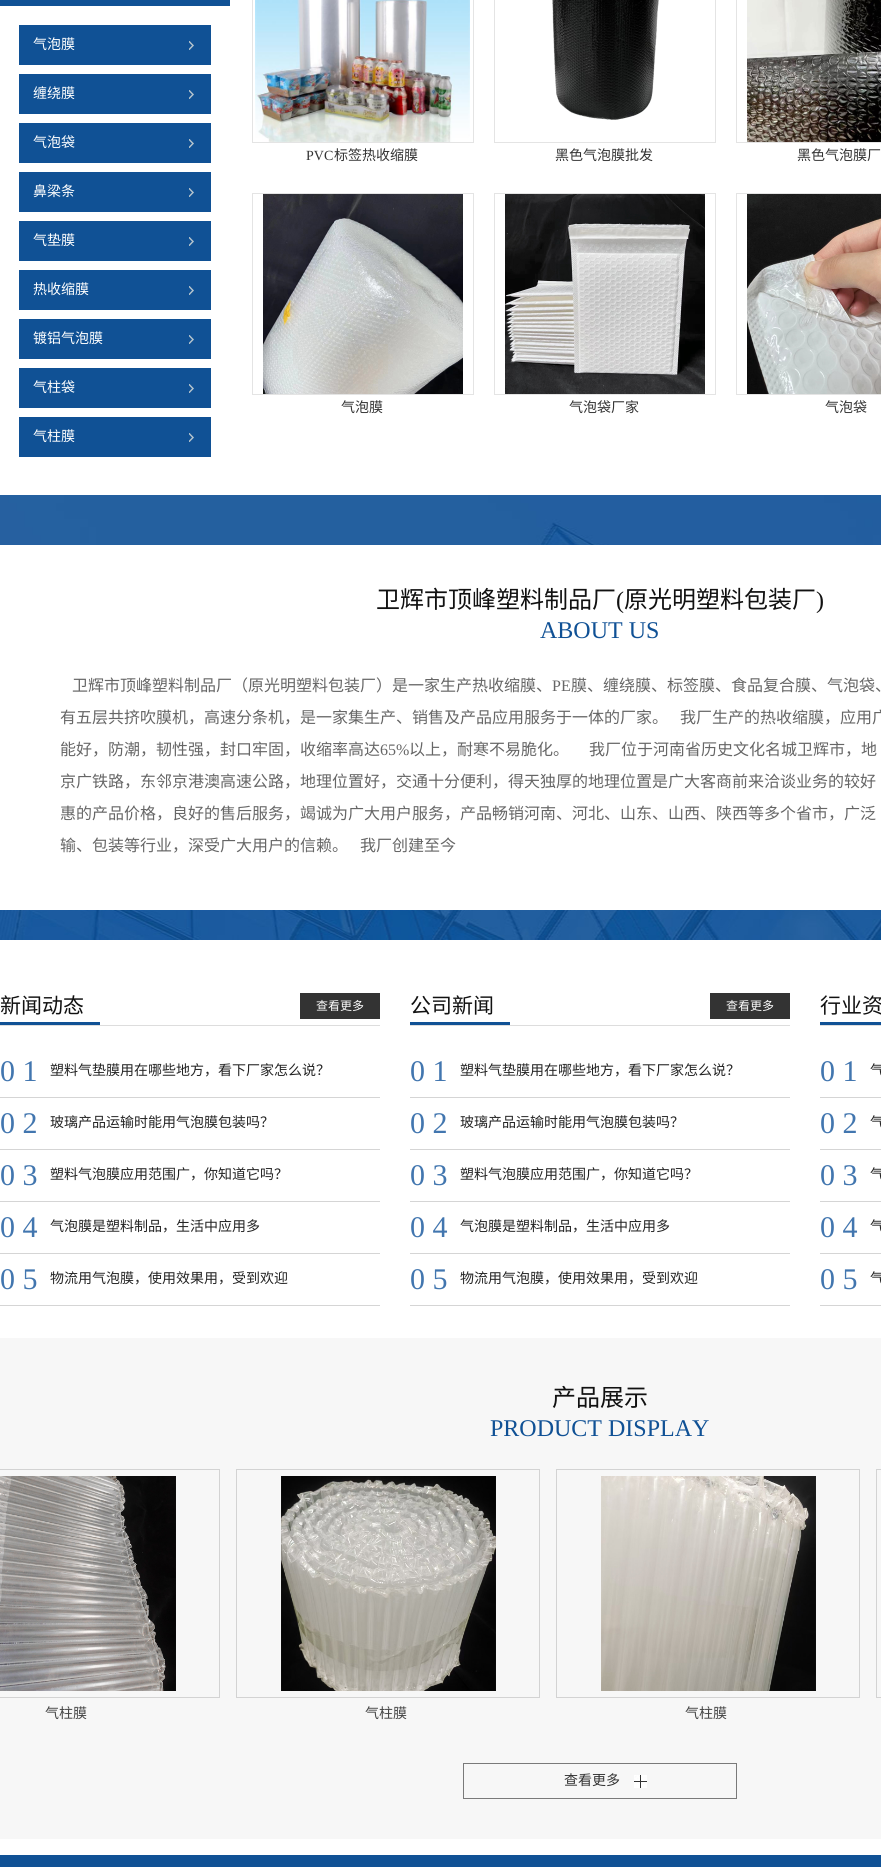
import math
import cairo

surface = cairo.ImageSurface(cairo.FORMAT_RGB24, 881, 1867)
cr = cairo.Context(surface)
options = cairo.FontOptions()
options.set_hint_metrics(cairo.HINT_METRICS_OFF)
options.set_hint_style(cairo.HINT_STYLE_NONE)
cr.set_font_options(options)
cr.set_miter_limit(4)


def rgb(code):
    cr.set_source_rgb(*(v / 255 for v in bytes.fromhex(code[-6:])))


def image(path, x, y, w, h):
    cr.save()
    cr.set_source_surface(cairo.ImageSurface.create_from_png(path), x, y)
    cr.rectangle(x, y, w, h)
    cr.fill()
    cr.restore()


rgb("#ffffff")
cr.paint()
rgb("#105195")
cr.rectangle(0, 0, 230, 6)
cr.fill()
cr.rectangle(19, 25, 192, 40)
cr.fill()
image("img/1.png", 189, 41, 5, 9)
cr.rectangle(19, 74, 192, 40)
cr.fill()
image("img/1.png", 189, 90, 5, 9)
cr.rectangle(19, 123, 192, 40)
cr.fill()
image("img/1.png", 189, 139, 5, 9)
cr.rectangle(19, 172, 192, 40)
cr.fill()
image("img/1.png", 189, 188, 5, 9)
cr.rectangle(19, 221, 192, 40)
cr.fill()
image("img/1.png", 189, 237, 5, 9)
cr.rectangle(19, 270, 192, 40)
cr.fill()
image("img/1.png", 189, 286, 5, 9)
cr.rectangle(19, 319, 192, 40)
cr.fill()
image("img/1.png", 189, 335, 5, 9)
cr.rectangle(19, 368, 192, 40)
cr.fill()
image("img/1.png", 189, 384, 5, 9)
cr.rectangle(19, 417, 192, 40)
cr.fill()
image("img/1.png", 189, 433, 5, 9)
cr.rectangle(252.5, -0.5, 221, 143)
rgb("#e4e4e4")
cr.set_line_width(1)
cr.stroke()
image("img/2.png", 255, 0, 215, 142)
cr.rectangle(494.5, -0.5, 221, 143)
cr.stroke()
image("img/3.png", 552, 0, 107, 120)
cr.rectangle(736.5, -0.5, 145, 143)
cr.stroke()
image("img/4.png", 747, 0, 134, 142)
cr.rectangle(252.5, 193.5, 221, 201)
cr.stroke()
image("img/5.png", 263, 194, 200, 200)
cr.rectangle(494.5, 193.5, 221, 201)
cr.stroke()
image("img/6.png", 505, 194, 200, 200)
cr.rectangle(736.5, 193.5, 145, 201)
cr.stroke()
image("img/7.png", 747, 194, 134, 200)
image("img/8.png", 0, 495, 881, 445)
for x, y, w, h, color in [
    (0, 545, 881, 365, "#ffffff"),
    (0, 1025, 380, 1, "#dddddd"),
    (0, 1022, 100, 3, "#105195"),
    (300, 993, 80, 26, "#333333"),
    (0, 1097, 380, 1, "#d5d5d5"),
    (0, 1149, 380, 1, "#d5d5d5"),
    (0, 1201, 380, 1, "#d5d5d5"),
    (0, 1253, 380, 1, "#d5d5d5"),
    (0, 1305, 380, 1, "#d5d5d5"),
    (410, 1025, 380, 1, "#dddddd"),
    (410, 1022, 100, 3, "#105195"),
    (710, 993, 80, 26, "#333333"),
    (410, 1097, 380, 1, "#d5d5d5"),
    (410, 1149, 380, 1, "#d5d5d5"),
    (410, 1201, 380, 1, "#d5d5d5"),
    (410, 1253, 380, 1, "#d5d5d5"),
    (410, 1305, 380, 1, "#d5d5d5"),
    (820, 1025, 61, 1, "#dddddd"),
    (820, 1022, 61, 3, "#105195"),
    (820, 1097, 61, 1, "#d5d5d5"),
    (820, 1149, 61, 1, "#d5d5d5"),
    (820, 1201, 61, 1, "#d5d5d5"),
    (820, 1253, 61, 1, "#d5d5d5"),
    (820, 1305, 61, 1, "#d5d5d5"),
    (0, 1338, 881, 501, "#f7f7f7"),
]:
    rgb(color)
    cr.rectangle(x, y, w, h)
    cr.fill()
cr.rectangle(876.5, 1469.5, 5, 228)
rgb("#d3d3d3")
cr.stroke()
cr.rectangle(-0.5, 1469.5, 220, 228)
cr.stroke()
image("img/9.png", 0, 1476, 176, 215)
cr.rectangle(236.5, 1469.5, 303, 228)
cr.stroke()
image("img/10.png", 281, 1476, 215, 215)
cr.rectangle(556.5, 1469.5, 303, 228)
cr.stroke()
image("img/11.png", 601, 1476, 215, 215)
image("img/12.png", 634, 1775, 13, 13)
cr.rectangle(463.5, 1763.5, 273, 35)
rgb("#7a7a7a")
cr.stroke()
rgb("#105195")
cr.rectangle(0, 1855, 881, 12)
cr.fill()
cr.select_font_face("Noto Sans CJK SC")
cr.set_font_size(14)
rgb("#ffffff")
for x, y, s in [
    (33, 49, "气泡膜"),
    (33, 98, "缠绕膜"),
    (33, 147, "气泡袋"),
    (33, 196, "鼻梁条"),
    (33, 245, "气垫膜"),
    (33, 294, "热收缩膜"),
    (33, 343, "镀铝气泡膜"),
    (33, 392, "气柱袋"),
    (33, 441, "气柱膜"),
]:
    cr.move_to(x, y)
    cr.show_text(s)
cr.select_font_face("Liberation Serif")
rgb("#333333")
cr.move_to(306, 160)
cr.show_text("PVC")
cr.select_font_face("Noto Sans CJK SC")
for x, y, s in [
    (334, 160, "标签热收缩膜"),
    (555, 160, "黑色气泡膜批发"),
    (797, 160, "黑色气泡膜厂"),
    (341, 412, "气泡膜"),
    (569, 412, "气泡袋厂家"),
    (825, 412, "气泡袋"),
]:
    cr.move_to(x, y)
    cr.show_text(s)
cr.set_font_size(24)
rgb("#111111")
cr.move_to(376, 608)
cr.show_text("卫辉市顶峰塑料制品厂")
cr.select_font_face("Liberation Serif")
cr.move_to(616, 608)
cr.show_text("(")
cr.select_font_face("Noto Sans CJK SC")
cr.move_to(624, 608)
cr.show_text("原光明塑料包装厂")
cr.select_font_face("Liberation Serif")
cr.move_to(816, 608)
cr.show_text(")")
rgb("#105195")
cr.move_to(540, 638)
cr.show_text("ABOUT US")
cr.select_font_face("Noto Sans CJK SC")
cr.set_font_size(16)
rgb("#666666")
cr.move_to(72, 691)
cr.show_text("卫辉市顶峰塑料制品厂（原光明塑料包装厂）是一家生产热收缩膜、")
cr.select_font_face("Liberation Serif")
cr.move_to(552, 691)
cr.show_text("PE")
cr.select_font_face("Noto Sans CJK SC")
for x, y, s in [
    (571, 691, "膜、缠绕膜、标签膜、食品复合膜、气泡袋、"),
    (60, 723, "有五层共挤吹膜机，高速分条机，是一家集生产、销售及产品应用服务于一体的厂家。"),
    (680, 723, "我厂生产的热收缩膜，应用广"),
    (60, 755, "能好，防潮，韧性强，封口牢固，收缩率高达"),
]:
    cr.move_to(x, y)
    cr.show_text(s)
cr.select_font_face("Liberation Serif")
cr.move_to(380, 755)
cr.show_text("65%")
cr.select_font_face("Noto Sans CJK SC")
for x, y, s in [
    (409, 755, "以上，耐寒不易脆化。"),
    (589, 755, "我厂位于河南省历史文化名城卫辉市，地"),
    (60, 787, "京广铁路，东邻京港澳高速公路，地理位置好，交通十分便利，得天独厚的地理位置是广大客商前来洽谈业务的较好"),
    (60, 819, "惠的产品价格，良好的售后服务，竭诚为广大用户服务，产品畅销河南、河北、山东、山西、陕西等多个省市，广泛"),
    (60, 851, "输、包装等行业，深受广大用户的信赖。"),
    (360, 851, "我厂创建至今"),
]:
    cr.move_to(x, y)
    cr.show_text(s)
cr.set_font_size(21)
rgb("#111111")
cr.move_to(0, 1013)
cr.show_text("新闻动态")
cr.set_font_size(12)
rgb("#ffffff")
cr.move_to(316, 1010)
cr.show_text("查看更多")
cr.select_font_face("Liberation Serif")
cr.set_font_size(30)
rgb("#4276af")
cr.move_to(0, 1081)
cr.show_text("0 1")
cr.select_font_face("Noto Sans CJK SC")
cr.set_font_size(14)
rgb("#232323")
cr.move_to(50, 1075)
cr.show_text("塑料气垫膜用在哪些地方，看下厂家怎么说？")
cr.select_font_face("Liberation Serif")
cr.set_font_size(30)
rgb("#4276af")
cr.move_to(0, 1133)
cr.show_text("0 2")
cr.select_font_face("Noto Sans CJK SC")
cr.set_font_size(14)
rgb("#232323")
cr.move_to(50, 1127)
cr.show_text("玻璃产品运输时能用气泡膜包装吗？")
cr.select_font_face("Liberation Serif")
cr.set_font_size(30)
rgb("#4276af")
cr.move_to(0, 1185)
cr.show_text("0 3")
cr.select_font_face("Noto Sans CJK SC")
cr.set_font_size(14)
rgb("#232323")
cr.move_to(50, 1179)
cr.show_text("塑料气泡膜应用范围广，你知道它吗？")
cr.select_font_face("Liberation Serif")
cr.set_font_size(30)
rgb("#4276af")
cr.move_to(0, 1237)
cr.show_text("0 4")
cr.select_font_face("Noto Sans CJK SC")
cr.set_font_size(14)
rgb("#232323")
cr.move_to(50, 1231)
cr.show_text("气泡膜是塑料制品，生活中应用多")
cr.select_font_face("Liberation Serif")
cr.set_font_size(30)
rgb("#4276af")
cr.move_to(0, 1289)
cr.show_text("0 5")
cr.select_font_face("Noto Sans CJK SC")
cr.set_font_size(14)
rgb("#232323")
cr.move_to(50, 1283)
cr.show_text("物流用气泡膜，使用效果用，受到欢迎")
cr.set_font_size(21)
rgb("#111111")
cr.move_to(410, 1013)
cr.show_text("公司新闻")
cr.set_font_size(12)
rgb("#ffffff")
cr.move_to(726, 1010)
cr.show_text("查看更多")
cr.select_font_face("Liberation Serif")
cr.set_font_size(30)
rgb("#4276af")
cr.move_to(410, 1081)
cr.show_text("0 1")
cr.select_font_face("Noto Sans CJK SC")
cr.set_font_size(14)
rgb("#232323")
cr.move_to(460, 1075)
cr.show_text("塑料气垫膜用在哪些地方，看下厂家怎么说？")
cr.select_font_face("Liberation Serif")
cr.set_font_size(30)
rgb("#4276af")
cr.move_to(410, 1133)
cr.show_text("0 2")
cr.select_font_face("Noto Sans CJK SC")
cr.set_font_size(14)
rgb("#232323")
cr.move_to(460, 1127)
cr.show_text("玻璃产品运输时能用气泡膜包装吗？")
cr.select_font_face("Liberation Serif")
cr.set_font_size(30)
rgb("#4276af")
cr.move_to(410, 1185)
cr.show_text("0 3")
cr.select_font_face("Noto Sans CJK SC")
cr.set_font_size(14)
rgb("#232323")
cr.move_to(460, 1179)
cr.show_text("塑料气泡膜应用范围广，你知道它吗？")
cr.select_font_face("Liberation Serif")
cr.set_font_size(30)
rgb("#4276af")
cr.move_to(410, 1237)
cr.show_text("0 4")
cr.select_font_face("Noto Sans CJK SC")
cr.set_font_size(14)
rgb("#232323")
cr.move_to(460, 1231)
cr.show_text("气泡膜是塑料制品，生活中应用多")
cr.select_font_face("Liberation Serif")
cr.set_font_size(30)
rgb("#4276af")
cr.move_to(410, 1289)
cr.show_text("0 5")
cr.select_font_face("Noto Sans CJK SC")
cr.set_font_size(14)
rgb("#232323")
cr.move_to(460, 1283)
cr.show_text("物流用气泡膜，使用效果用，受到欢迎")
cr.set_font_size(21)
rgb("#111111")
cr.move_to(820, 1013)
cr.show_text("行业资")
cr.select_font_face("Liberation Serif")
cr.set_font_size(30)
rgb("#4276af")
cr.move_to(820, 1081)
cr.show_text("0 1")
cr.select_font_face("Noto Sans CJK SC")
cr.set_font_size(14)
rgb("#232323")
cr.move_to(870, 1075)
cr.show_text("气")
cr.select_font_face("Liberation Serif")
cr.set_font_size(30)
rgb("#4276af")
cr.move_to(820, 1133)
cr.show_text("0 2")
cr.select_font_face("Noto Sans CJK SC")
cr.set_font_size(14)
rgb("#232323")
cr.move_to(870, 1127)
cr.show_text("气")
cr.select_font_face("Liberation Serif")
cr.set_font_size(30)
rgb("#4276af")
cr.move_to(820, 1185)
cr.show_text("0 3")
cr.select_font_face("Noto Sans CJK SC")
cr.set_font_size(14)
rgb("#232323")
cr.move_to(870, 1179)
cr.show_text("气")
cr.select_font_face("Liberation Serif")
cr.set_font_size(30)
rgb("#4276af")
cr.move_to(820, 1237)
cr.show_text("0 4")
cr.select_font_face("Noto Sans CJK SC")
cr.set_font_size(14)
rgb("#232323")
cr.move_to(870, 1231)
cr.show_text("气")
cr.select_font_face("Liberation Serif")
cr.set_font_size(30)
rgb("#4276af")
cr.move_to(820, 1289)
cr.show_text("0 5")
cr.select_font_face("Noto Sans CJK SC")
cr.set_font_size(14)
rgb("#232323")
cr.move_to(870, 1283)
cr.show_text("气")
cr.set_font_size(24)
rgb("#111111")
cr.move_to(552, 1406)
cr.show_text("产品展示")
cr.select_font_face("Liberation Serif")
rgb("#105195")
cr.move_to(490, 1436)
cr.show_text("PRODUCT DISPLAY")
cr.select_font_face("Noto Sans CJK SC")
cr.set_font_size(14)
rgb("#444444")
for x, y, s in [
    (45, 1718, "气柱膜"),
    (365, 1718, "气柱膜"),
    (685, 1718, "气柱膜"),
]:
    cr.move_to(x, y)
    cr.show_text(s)
rgb("#333333")
cr.move_to(564, 1785)
cr.show_text("查看更多")
surface.write_to_png("page.png")
